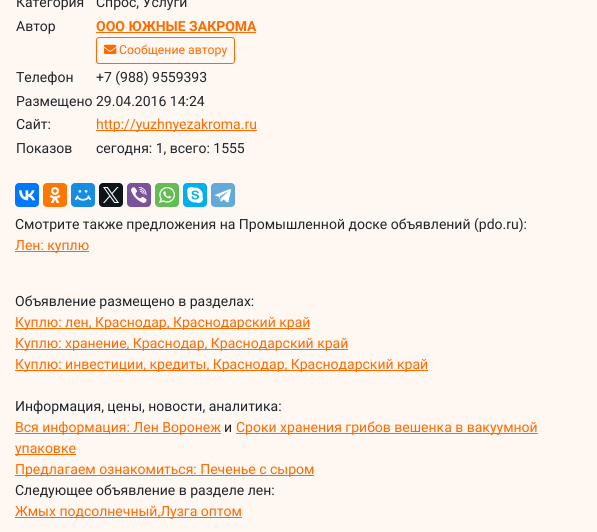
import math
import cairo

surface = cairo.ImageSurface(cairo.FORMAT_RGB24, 597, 532)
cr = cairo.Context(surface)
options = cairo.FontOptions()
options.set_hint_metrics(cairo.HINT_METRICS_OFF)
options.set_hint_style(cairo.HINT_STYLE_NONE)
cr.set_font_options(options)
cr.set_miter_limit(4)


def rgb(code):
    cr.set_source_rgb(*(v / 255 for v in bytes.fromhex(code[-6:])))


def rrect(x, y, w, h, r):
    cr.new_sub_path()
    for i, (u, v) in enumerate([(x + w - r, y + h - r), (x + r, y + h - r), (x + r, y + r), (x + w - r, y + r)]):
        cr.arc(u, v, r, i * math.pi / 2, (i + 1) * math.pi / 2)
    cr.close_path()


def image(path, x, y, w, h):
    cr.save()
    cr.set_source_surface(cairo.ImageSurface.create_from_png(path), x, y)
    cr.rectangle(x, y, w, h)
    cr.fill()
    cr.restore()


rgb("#fff7f2")
cr.paint()
rgb("#ff6a00")
cr.rectangle(96, 32, 160, 1)
cr.fill()
rrect(96.5, 37.5, 138, 26, 2.5)
cr.set_line_width(1)
cr.stroke()
image("img/1.png", 104, 44, 13, 10)
cr.rectangle(96, 130, 161, 1)
cr.fill()
rgb("#0077ff")
rrect(15, 183, 24, 24, 4)
cr.fill()
image("img/2.png", 19, 190, 16, 11)
rgb("#ff7700")
rrect(43, 183, 24, 24, 4)
cr.fill()
image("img/3.png", 49, 187, 12, 16)
rgb("#168de2")
rrect(71, 183, 24, 24, 4)
cr.fill()
image("img/4.png", 75, 190, 16, 11)
rgb("#0f1419")
rrect(99, 183, 24, 24, 4)
cr.fill()
image("img/5.png", 103, 187, 16, 16)
rgb("#7b519d")
rrect(127, 183, 24, 24, 4)
cr.fill()
image("img/6.png", 131, 187, 16, 16)
rgb("#65bc54")
rrect(155, 183, 24, 24, 4)
cr.fill()
image("img/7.png", 159, 187, 16, 16)
rgb("#00aff0")
rrect(183, 183, 24, 24, 4)
cr.fill()
image("img/8.png", 187, 187, 16, 16)
rgb("#64a9dc")
rrect(211, 183, 24, 24, 4)
cr.fill()
image("img/9.png", 215, 189, 16, 14)
for x, y, w, h, color in [
    (15, 251, 74, 1, "#ff6a00"),
    (15, 328, 295, 1, "#ff6a00"),
    (15, 349, 333, 1, "#ff6a00"),
    (15, 370, 413, 1, "#ff6a00"),
    (15, 433, 206, 1, "#ff6a00"),
    (236, 433, 302, 1, "#ff6a00"),
    (15, 454, 61, 1, "#ff6a00"),
    (15, 475, 299, 1, "#ff6a00"),
    (15, 517, 227, 1, "#ff6a00"),
]:
    rgb(color)
    cr.rectangle(x, y, w, h)
    cr.fill()
cr.select_font_face("Roboto")
cr.set_font_size(14)
rgb("#212529")
for x, y, s in [
    (16, 7, "Категория"),
    (96, 7, "Спрос, Услуги"),
    (16, 31, "Автор"),
]:
    cr.move_to(x, y)
    cr.show_text(s)
cr.select_font_face("Roboto", cairo.FONT_SLANT_NORMAL, cairo.FONT_WEIGHT_BOLD)
rgb("#ff6a00")
cr.move_to(96, 31)
cr.show_text("ООО ЮЖНЫЕ ЗАКРОМА")
cr.select_font_face("Roboto")
cr.set_font_size(12.25)
cr.move_to(119, 54)
cr.show_text("Сообщение автору")
cr.set_font_size(14)
rgb("#212529")
for x, y, s in [
    (16, 82, "Телефон"),
    (96, 82, "+7 (988) 9559393"),
    (16, 106, "Размещено"),
    (96, 106, "29.04.2016 14:24"),
    (16, 129, "Сайт:"),
]:
    cr.move_to(x, y)
    cr.show_text(s)
rgb("#ff6a00")
cr.move_to(96, 129)
cr.show_text("http://yuzhnyezakroma.ru")
rgb("#212529")
for x, y, s in [
    (16, 153, "Показов"),
    (96, 153, "cегодня: 1, всего: 1555"),
    (15, 229, "Смотрите также предложения на Промышленной доске объявлений (pdo.ru):"),
]:
    cr.move_to(x, y)
    cr.show_text(s)
rgb("#ff6a00")
cr.move_to(15, 250)
cr.show_text("Лен: куплю")
rgb("#212529")
cr.move_to(15, 306)
cr.show_text("Объявление размещено в разделах:")
rgb("#ff6a00")
for x, y, s in [
    (15, 327, "Куплю: лен, Краснодар, Краснодарский край"),
    (15, 348, "Куплю: хранение, Краснодар, Краснодарский край"),
    (15, 369, "Куплю: инвестиции, кредиты, Краснодар, Краснодарский край"),
]:
    cr.move_to(x, y)
    cr.show_text(s)
rgb("#212529")
cr.move_to(15, 411)
cr.show_text("Информация, цены, новости, аналитика:")
rgb("#ff6a00")
cr.move_to(15, 432)
cr.show_text("Вся информация: Лен Воронеж")
rgb("#212529")
cr.move_to(224, 432)
cr.show_text("и")
rgb("#ff6a00")
for x, y, s in [
    (236, 432, "Сроки хранения грибов вешенка в вакуумной"),
    (15, 453, "упаковке"),
    (15, 474, "Предлагаем ознакомиться: Печенье с сыром"),
]:
    cr.move_to(x, y)
    cr.show_text(s)
rgb("#212529")
cr.move_to(15, 495)
cr.show_text("Следующее объявление в разделе лен:")
rgb("#ff6a00")
cr.move_to(15, 516)
cr.show_text("Жмых подсолнечный,Лузга оптом")
surface.write_to_png("page.png")
